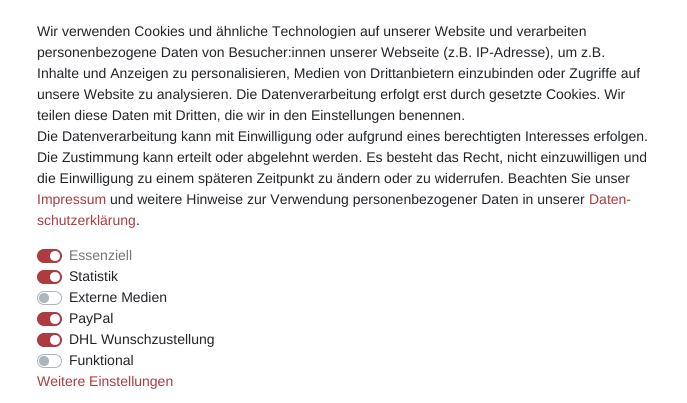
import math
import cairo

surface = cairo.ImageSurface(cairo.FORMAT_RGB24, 687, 403)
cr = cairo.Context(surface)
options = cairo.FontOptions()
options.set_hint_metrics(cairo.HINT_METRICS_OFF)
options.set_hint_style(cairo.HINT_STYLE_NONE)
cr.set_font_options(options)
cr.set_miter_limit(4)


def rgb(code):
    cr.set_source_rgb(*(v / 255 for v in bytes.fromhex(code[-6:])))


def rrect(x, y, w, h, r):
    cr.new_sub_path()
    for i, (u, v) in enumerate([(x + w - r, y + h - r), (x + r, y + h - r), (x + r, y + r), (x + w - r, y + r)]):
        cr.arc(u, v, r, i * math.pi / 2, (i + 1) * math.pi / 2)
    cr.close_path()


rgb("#ffffff")
cr.paint()
rgb("#ad3b40")
rrect(37.5, 249.5, 24, 13, 6.5)
cr.fill_preserve()
cr.set_line_width(1)
cr.stroke()
rgb("#ffffff")
cr.arc(55, 256, 5, 0, 2 * math.pi)
cr.fill()
rgb("#ad3b40")
rrect(37.5, 270.5, 24, 13, 6.5)
cr.fill_preserve()
cr.stroke()
rgb("#ffffff")
cr.arc(55, 277, 5, 0, 2 * math.pi)
cr.fill()
rrect(37.5, 291.5, 24, 13, 6.5)
rgb("#adb5bd")
cr.stroke()
cr.arc(44, 298, 5, 0, 2 * math.pi)
cr.fill()
rgb("#ad3b40")
rrect(37.5, 312.5, 24, 13, 6.5)
cr.fill_preserve()
cr.stroke()
rgb("#ffffff")
cr.arc(55, 319, 5, 0, 2 * math.pi)
cr.fill()
rgb("#ad3b40")
rrect(37.5, 333.5, 24, 13, 6.5)
cr.fill_preserve()
cr.stroke()
rgb("#ffffff")
cr.arc(55, 340, 5, 0, 2 * math.pi)
cr.fill()
rrect(37.5, 354.5, 24, 13, 6.5)
rgb("#adb5bd")
cr.stroke()
cr.arc(44, 361, 5, 0, 2 * math.pi)
cr.fill()
cr.select_font_face("Liberation Sans")
cr.set_font_size(14)
rgb("#212529")
for x, y, s in [
    (37, 36, "Wir verwenden Cookies und ähnliche Technologien auf unserer Website und verarbeiten"),
    (37, 57, "personenbezogene Daten von Besucher:innen unserer Webseite (z.B. IP-Adresse), um z.B."),
    (37, 78, "Inhalte und Anzeigen zu personalisieren, Medien von Drittanbietern einzubinden oder Zugriffe auf"),
    (37, 99, "unsere Website zu analysieren. Die Datenverarbeitung erfolgt erst durch gesetzte Cookies. Wir"),
    (37, 120, "teilen diese Daten mit Dritten, die wir in den Einstellungen benennen."),
    (37, 141, "Die Datenverarbeitung kann mit Einwilligung oder aufgrund eines berechtigten Interesses erfolgen."),
    (37, 162, "Die Zustimmung kann erteilt oder abgelehnt werden. Es besteht das Recht, nicht einzuwilligen und"),
    (37, 183, "die Einwilligung zu einem späteren Zeitpunkt zu ändern oder zu widerrufen. Beachten Sie unser"),
]:
    cr.move_to(x, y)
    cr.show_text(s)
rgb("#ad3b40")
cr.move_to(37, 204)
cr.show_text("Impressum")
rgb("#212529")
cr.move_to(110, 204)
cr.show_text("und weitere Hinweise zur Verwendung personenbezogener Daten in unserer")
rgb("#ad3b40")
cr.move_to(589, 204)
cr.show_text("Daten-")
cr.move_to(37, 225)
cr.show_text("schutzerklärung")
rgb("#212529")
cr.move_to(136, 225)
cr.show_text(".")
rgb("#767676")
cr.move_to(69, 260)
cr.show_text("Essenziell")
rgb("#212529")
for x, y, s in [
    (69, 281, "Statistik"),
    (69, 302, "Externe Medien"),
    (69, 323, "PayPal"),
    (69, 344, "DHL Wunschzustellung"),
    (69, 365, "Funktional"),
]:
    cr.move_to(x, y)
    cr.show_text(s)
rgb("#ad3b40")
cr.move_to(37, 386)
cr.show_text("Weitere Einstellungen")
surface.write_to_png("page.png")
